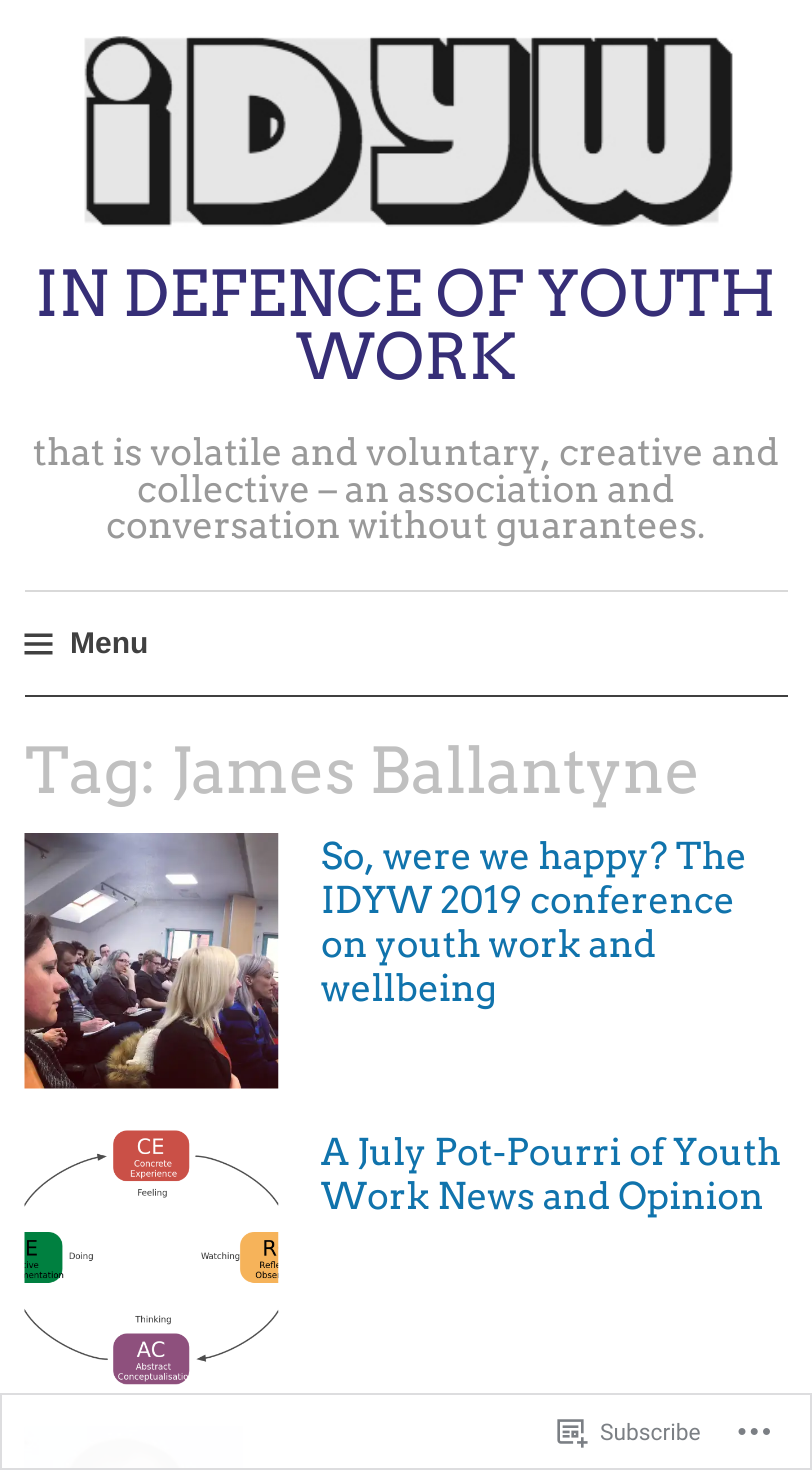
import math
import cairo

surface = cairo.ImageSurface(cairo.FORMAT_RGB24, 812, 1470)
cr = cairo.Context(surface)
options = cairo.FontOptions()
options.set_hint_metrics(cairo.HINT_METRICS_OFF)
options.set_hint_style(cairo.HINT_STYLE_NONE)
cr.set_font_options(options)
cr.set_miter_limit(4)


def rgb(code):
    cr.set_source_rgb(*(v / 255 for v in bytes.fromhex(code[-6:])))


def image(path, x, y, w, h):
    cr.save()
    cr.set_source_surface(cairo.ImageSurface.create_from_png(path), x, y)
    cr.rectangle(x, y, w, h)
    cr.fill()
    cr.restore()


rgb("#ffffff")
cr.paint()
image("img/1.png", 84, 36, 649, 191)
rgb("#d9d9d9")
cr.rectangle(25, 590, 763, 2)
cr.fill()
rgb("#404040")
cr.rectangle(25, 695, 763, 2)
cr.fill()
image("img/2.png", 24, 633, 29, 22)
image("img/3.png", 24, 833, 255, 256)
image("img/4.png", 24, 1130, 255, 255)
image("img/5.png", 24, 1426, 220, 44)
cr.rectangle(1, 1394, 810, 75)
cr.set_source_rgba(0.863, 0.863, 0.871, 0.98)
cr.stroke()
image("img/6.png", 557, 1419, 31, 29)
image("img/7.png", 738, 1428, 32, 7)
cr.select_font_face("Arvo")
cr.set_font_size(63)
rgb("#362e77")
cr.move_to(35, 316)
cr.show_text("IN DEFENCE OF YOUTH")
cr.move_to(296, 379)
cr.show_text("WORK")
cr.set_font_size(36.75)
rgb("#999999")
for x, y, s in [
    (33, 465, "that is volatile and voluntary, creative and"),
    (137, 502, "collective – an association and"),
    (106, 538, "conversation without guarantees."),
]:
    cr.move_to(x, y)
    cr.show_text(s)
cr.select_font_face("Arimo", cairo.FONT_SLANT_NORMAL, cairo.FONT_WEIGHT_BOLD)
cr.set_font_size(30)
rgb("#404040")
cr.move_to(70, 653)
cr.show_text("Menu")
cr.select_font_face("Arvo")
cr.set_font_size(63)
rgb("#c0c0c0")
cr.move_to(25, 793)
cr.show_text("Tag: James Ballantyne")
cr.set_font_size(36.75)
rgb("#1073ac")
for x, y, s in [
    (321, 869, "So, were we happy? The"),
    (321, 913, "IDYW 2019 conference"),
    (321, 957, "on youth work and"),
    (321, 1001, "wellbeing"),
    (321, 1165, "A July Pot-Pourri of Youth"),
    (321, 1209, "Work News and Opinion"),
]:
    cr.move_to(x, y)
    cr.show_text(s)
cr.select_font_face("Roboto")
cr.set_font_size(22.75)
rgb("#7b7f84")
cr.move_to(600, 1440)
cr.show_text("Subscribe")
surface.write_to_png("page.png")
